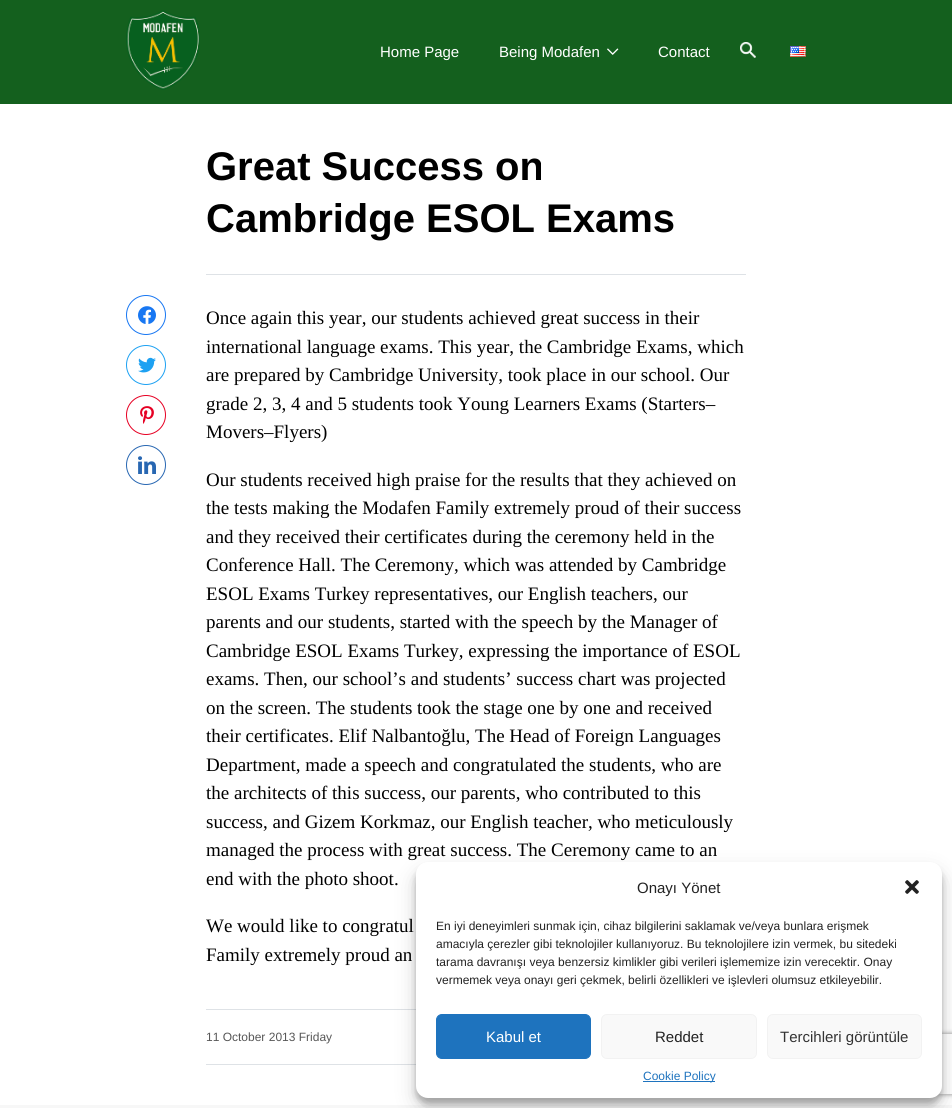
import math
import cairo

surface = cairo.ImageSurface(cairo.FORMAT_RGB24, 952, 1108)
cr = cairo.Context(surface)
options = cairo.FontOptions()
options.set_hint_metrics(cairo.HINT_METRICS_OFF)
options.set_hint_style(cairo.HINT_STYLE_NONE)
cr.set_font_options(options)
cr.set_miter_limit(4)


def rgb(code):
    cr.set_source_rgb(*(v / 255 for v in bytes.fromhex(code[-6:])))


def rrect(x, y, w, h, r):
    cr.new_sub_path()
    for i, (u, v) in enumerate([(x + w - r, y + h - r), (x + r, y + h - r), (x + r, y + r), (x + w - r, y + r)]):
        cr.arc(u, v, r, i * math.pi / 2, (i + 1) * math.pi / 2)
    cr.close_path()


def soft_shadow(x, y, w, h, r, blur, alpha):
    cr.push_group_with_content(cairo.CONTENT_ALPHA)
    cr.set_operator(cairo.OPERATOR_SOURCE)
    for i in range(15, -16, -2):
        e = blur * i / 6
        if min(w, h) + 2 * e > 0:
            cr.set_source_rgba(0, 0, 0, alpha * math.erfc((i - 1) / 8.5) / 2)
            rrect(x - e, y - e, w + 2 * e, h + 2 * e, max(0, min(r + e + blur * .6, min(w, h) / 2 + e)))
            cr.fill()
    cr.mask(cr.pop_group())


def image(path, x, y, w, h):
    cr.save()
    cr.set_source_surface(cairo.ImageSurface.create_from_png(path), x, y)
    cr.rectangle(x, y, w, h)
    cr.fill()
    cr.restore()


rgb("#f7f7f7")
cr.paint()
rgb("#14601e")
cr.rectangle(0, 0, 952, 104)
cr.fill()
image("img/1.png", 126, 10, 74, 80)
image("img/2.png", 607, 48, 12, 7)
image("img/3.png", 740, 42, 16, 16)
image("img/4.png", 790, 46, 16, 11)
rgb("#ffffff")
cr.rectangle(0, 104, 952, 1001)
cr.fill()
rgb("#dee2e6")
cr.rectangle(206, 274, 540, 1)
cr.fill()
cr.arc(146, 315, 19.5, 0, 2 * math.pi)
rgb("#1877f2")
cr.set_line_width(1)
cr.stroke()
image("img/5.png", 138, 306, 18, 18)
cr.arc(146, 365, 19.5, 0, 2 * math.pi)
rgb("#1da1f2")
cr.stroke()
image("img/6.png", 138, 357, 18, 16)
cr.arc(146, 415, 19.5, 0, 2 * math.pi)
rgb("#e60023")
cr.stroke()
image("img/7.png", 140, 406, 14, 18)
cr.arc(146, 465, 19.5, 0, 2 * math.pi)
rgb("#2867b2")
cr.stroke()
image("img/8.png", 138, 456, 18, 18)
rgb("#dee2e6")
cr.rectangle(206, 1009, 210, 1)
cr.fill()
cr.rectangle(206, 1064, 210, 1)
cr.fill()
rgb("#000000")
soft_shadow(416, 868, 526, 236, 12, 3, 0.23)
soft_shadow(416, 872, 526, 236, 12, 10, 0.19)
cr.save()
cr.set_fill_rule(cairo.FILL_RULE_EVEN_ODD)
cr.new_path()
cr.move_to(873, 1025)
cr.line_to(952, 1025)
cr.line_to(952, 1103)
cr.line_to(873, 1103)
cr.close_path()
cr.move_to(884, 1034)
cr.line_to(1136, 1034)
cr.curve_to(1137, 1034, 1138, 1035, 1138, 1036)
cr.line_to(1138, 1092)
cr.curve_to(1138, 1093, 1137, 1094, 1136, 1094)
cr.line_to(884, 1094)
cr.curve_to(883, 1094, 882, 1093, 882, 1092)
cr.line_to(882, 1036)
cr.curve_to(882, 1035, 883, 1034, 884, 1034)
cr.close_path()
cr.clip()
rgb("#808080")
soft_shadow(882, 1034, 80, 60, 2, 2.5, 1)
cr.restore()
rgb("#ffffff")
rrect(416, 862, 526, 236, 12)
cr.fill()
image("img/9.png", 905, 880, 14, 14)
rgb("#1e73be")
rrect(436.5, 1014.5, 154, 44, 5.5)
cr.fill_preserve()
cr.stroke()
rgb("#f9f9f9")
rrect(601.5, 1014.5, 155, 44, 5.5)
cr.fill_preserve()
rgb("#f2f2f2")
cr.stroke()
rgb("#f9f9f9")
rrect(767.5, 1014.5, 154, 44, 5.5)
cr.fill_preserve()
rgb("#f2f2f2")
cr.stroke()
rgb("#1e73be")
cr.rectangle(643, 1081, 72, 1)
cr.fill()
cr.select_font_face("Liberation Sans")
cr.set_font_size(15)
rgb("#ffffff")
for x, y, s in [
    (380, 57, "Home Page"),
    (499, 57, "Being Modafen"),
    (658, 57, "Contact"),
]:
    cr.move_to(x, y)
    cr.show_text(s)
cr.select_font_face("Liberation Sans", cairo.FONT_SLANT_NORMAL, cairo.FONT_WEIGHT_BOLD)
cr.set_font_size(40)
rgb("#000000")
cr.move_to(206, 180)
cr.show_text("Great Success on")
cr.move_to(206, 232)
cr.show_text("Cambridge ESOL Exams")
cr.select_font_face("Liberation Serif")
cr.set_font_size(19)
for x, y, s in [
    (206, 324, "Once again this year, our students achieved great success in their"),
    (206, 353, "international language exams. This year, the Cambridge Exams, which"),
    (206, 381, "are prepared by Cambridge University, took place in our school. Our"),
    (206, 410, "grade 2, 3, 4 and 5 students took Young Learners Exams (Starters–"),
    (206, 438, "Movers–Flyers)"),
    (206, 486, "Our students received high praise for the results that they achieved on"),
    (206, 514, "the tests making the Modafen Family extremely proud of their success"),
    (206, 543, "and they received their certificates during the ceremony held in the"),
    (206, 571, "Conference Hall. The Ceremony, which was attended by Cambridge"),
    (206, 600, "ESOL Exams Turkey representatives, our English teachers, our"),
    (206, 628, "parents and our students, started with the speech by the Manager of"),
    (206, 657, "Cambridge ESOL Exams Turkey, expressing the importance of ESOL"),
    (206, 685, "exams. Then, our school’s and students’ success chart was projected"),
    (206, 714, "on the screen. The students took the stage one by one and received"),
    (206, 742, "their certificates. Elif Nalbantoğlu, The Head of Foreign Languages"),
    (206, 771, "Department, made a speech and congratulated the students, who are"),
    (206, 799, "the architects of this success, our parents, who contributed to this"),
    (206, 828, "success, and Gizem Korkmaz, our English teacher, who meticulously"),
    (206, 856, "managed the process with great success. The Ceremony came to an"),
    (206, 885, "end with the photo shoot."),
    (206, 932, "We would like to congratul"),
    (206, 961, "Family extremely proud an"),
]:
    cr.move_to(x, y)
    cr.show_text(s)
cr.select_font_face("Liberation Sans")
cr.set_font_size(12)
rgb("#575757")
cr.move_to(206, 1041)
cr.show_text("11 October 2013 Friday")
cr.set_font_size(15)
rgb("#222222")
cr.move_to(637, 893)
cr.show_text("Onayı Yönet")
cr.set_font_size(12)
for x, y, s in [
    (436, 930, "En iyi deneyimleri sunmak için, cihaz bilgilerini saklamak ve/veya bunlara erişmek"),
    (436, 948, "amacıyla çerezler gibi teknolojiler kullanıyoruz. Bu teknolojilere izin vermek, bu sitedeki"),
    (436, 966, "tarama davranışı veya benzersiz kimlikler gibi verileri işlememize izin verecektir. Onay"),
    (436, 984, "vermemek veya onayı geri çekmek, belirli özellikleri ve işlevleri olumsuz etkileyebilir."),
]:
    cr.move_to(x, y)
    cr.show_text(s)
cr.set_font_size(15)
rgb("#ffffff")
cr.move_to(486, 1042)
cr.show_text("Kabul et")
rgb("#222222")
cr.move_to(655, 1042)
cr.show_text("Reddet")
rgb("#333333")
cr.move_to(780, 1042)
cr.show_text("Tercihleri görüntüle")
cr.set_font_size(12)
rgb("#1e73be")
cr.move_to(643, 1080)
cr.show_text("Cookie Policy")
surface.write_to_png("page.png")
